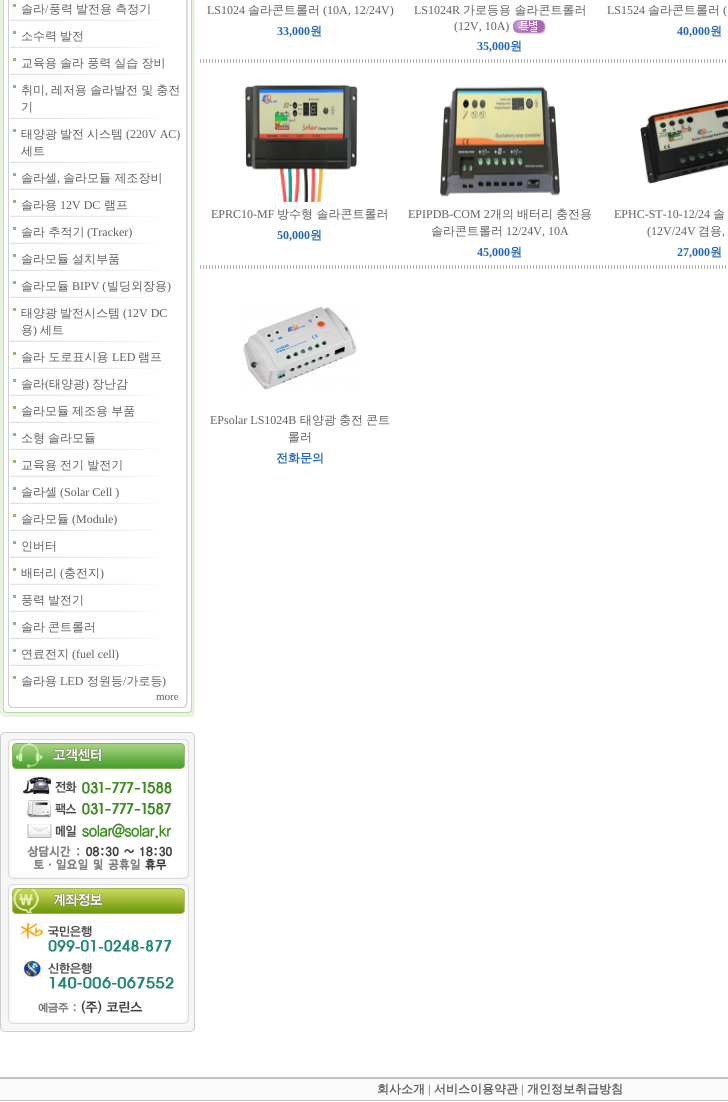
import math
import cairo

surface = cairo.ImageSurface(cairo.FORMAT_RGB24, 728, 1102)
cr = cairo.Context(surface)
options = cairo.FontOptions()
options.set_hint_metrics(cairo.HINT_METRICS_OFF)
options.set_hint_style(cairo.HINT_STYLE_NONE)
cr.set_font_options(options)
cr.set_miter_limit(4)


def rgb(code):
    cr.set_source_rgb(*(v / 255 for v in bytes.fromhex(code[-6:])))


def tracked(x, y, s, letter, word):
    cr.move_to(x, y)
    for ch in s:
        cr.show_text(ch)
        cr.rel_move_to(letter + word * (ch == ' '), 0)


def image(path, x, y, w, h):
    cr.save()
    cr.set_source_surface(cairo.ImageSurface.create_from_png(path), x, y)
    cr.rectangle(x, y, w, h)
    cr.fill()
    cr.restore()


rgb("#ffffff")
cr.paint()
image("img/1.png", 0, 0, 195, 708)
image("img/2.png", 8, 0, 180, 702)
rgb("#85bc66")
cr.rectangle(13, 4, 3, 3)
cr.fill()
image("img/3.png", 10, 19, 148, 2)
cr.rectangle(13, 31, 3, 3)
cr.fill()
image("img/3.png", 10, 46, 148, 2)
cr.rectangle(13, 58, 3, 3)
cr.fill()
image("img/3.png", 10, 73, 148, 2)
cr.rectangle(13, 85, 3, 3)
cr.fill()
image("img/3.png", 10, 117, 148, 2)
cr.rectangle(13, 129, 3, 3)
cr.fill()
image("img/3.png", 10, 161, 148, 2)
cr.rectangle(13, 173, 3, 3)
cr.fill()
image("img/3.png", 10, 188, 148, 2)
cr.rectangle(13, 200, 3, 3)
cr.fill()
image("img/3.png", 10, 215, 148, 2)
cr.rectangle(13, 227, 3, 3)
cr.fill()
image("img/3.png", 10, 242, 148, 2)
cr.rectangle(13, 254, 3, 3)
cr.fill()
image("img/3.png", 10, 269, 148, 2)
cr.rectangle(13, 281, 3, 3)
cr.fill()
image("img/3.png", 10, 296, 148, 2)
cr.rectangle(13, 308, 3, 3)
cr.fill()
image("img/3.png", 10, 340, 148, 2)
cr.rectangle(13, 352, 3, 3)
cr.fill()
image("img/3.png", 10, 367, 148, 2)
cr.rectangle(13, 379, 3, 3)
cr.fill()
image("img/3.png", 10, 394, 148, 2)
cr.rectangle(13, 406, 3, 3)
cr.fill()
image("img/3.png", 10, 421, 148, 2)
cr.rectangle(13, 433, 3, 3)
cr.fill()
image("img/3.png", 10, 448, 148, 2)
cr.rectangle(13, 460, 3, 3)
cr.fill()
image("img/3.png", 10, 475, 148, 2)
cr.rectangle(13, 487, 3, 3)
cr.fill()
image("img/3.png", 10, 502, 148, 2)
cr.rectangle(13, 514, 3, 3)
cr.fill()
image("img/3.png", 10, 529, 148, 2)
cr.rectangle(13, 541, 3, 3)
cr.fill()
image("img/3.png", 10, 556, 148, 2)
cr.rectangle(13, 568, 3, 3)
cr.fill()
image("img/3.png", 10, 583, 148, 2)
cr.rectangle(13, 595, 3, 3)
cr.fill()
image("img/3.png", 10, 610, 148, 2)
cr.rectangle(13, 622, 3, 3)
cr.fill()
image("img/3.png", 10, 637, 148, 2)
cr.rectangle(13, 649, 3, 3)
cr.fill()
image("img/3.png", 10, 664, 148, 2)
cr.rectangle(13, 676, 3, 3)
cr.fill()
image("img/4.png", 8, 702, 180, 6)
image("img/5.png", 0, 708, 195, 9)
image("img/6.png", 0, 732, 195, 300)
image("img/7.png", 23, 777, 149, 94)
image("img/8.png", 21, 923, 153, 91)
image("img/9.png", 513, 20, 33, 14)
image("img/10.png", 200, 59, 526, 4)
image("img/11.png", 245, 84, 113, 118)
image("img/12.png", 440, 86, 120, 111)
image("img/13.png", 640, 100, 88, 84)
image("img/10.png", 200, 265, 526, 4)
image("img/14.png", 243, 304, 116, 87)
for x, y, w, h, color in [
    (0, 1079, 728, 21, "#fafafa"),
    (0, 1077, 728, 2, "#c1c1c1"),
    (0, 1100, 728, 1, "#c1c1c1"),
]:
    rgb(color)
    cr.rectangle(x, y, w, h)
    cr.fill()
cr.select_font_face("WenQuanYi Zen Hei Medium")
cr.set_font_size(12)
rgb("#5f5f5f")
cr.move_to(21, 13)
cr.show_text("솔라")
cr.select_font_face("Liberation Serif")
cr.move_to(45, 13)
cr.show_text("/")
cr.select_font_face("WenQuanYi Zen Hei Medium")
for x, y, s in [
    (49, 13, "풍력 발전용 측정기"),
    (21, 40, "소수력 발전"),
    (21, 67, "교육용 솔라 풍력 실습 장비"),
]:
    tracked(x, y, s, 0, -0.5)
cr.move_to(21, 94)
cr.show_text("취미")
cr.select_font_face("Liberation Serif")
cr.move_to(45, 94)
cr.show_text(",")
cr.select_font_face("WenQuanYi Zen Hei Medium")
tracked(51, 94, "레저용 솔라발전 및 충전", 0, -0.5)
for x, y, s in [
    (21, 111, "기"),
    (21, 138, "태양광"),
    (60, 138, "발전"),
    (87, 138, "시스템"),
]:
    cr.move_to(x, y)
    cr.show_text(s)
cr.select_font_face("Liberation Serif")
cr.move_to(126, 138)
cr.show_text("(220V AC)")
cr.select_font_face("WenQuanYi Zen Hei Medium")
cr.move_to(21, 155)
cr.show_text("세트")
cr.move_to(21, 182)
cr.show_text("솔라셀")
cr.select_font_face("Liberation Serif")
cr.move_to(57, 182)
cr.show_text(",")
cr.select_font_face("WenQuanYi Zen Hei Medium")
cr.move_to(63, 182)
cr.show_text("솔라모듈 제조장비")
cr.move_to(21, 209)
cr.show_text("솔라용")
cr.select_font_face("Liberation Serif")
cr.move_to(60, 209)
cr.show_text("12V DC")
cr.select_font_face("WenQuanYi Zen Hei Medium")
cr.move_to(104, 209)
cr.show_text("램프")
cr.move_to(21, 236)
cr.show_text("솔라 추적기")
cr.select_font_face("Liberation Serif")
cr.move_to(87, 236)
cr.show_text("(Tracker)")
cr.select_font_face("WenQuanYi Zen Hei Medium")
tracked(21, 263, "솔라모듈 설치부품", 0, -0.5)
cr.move_to(21, 290)
cr.show_text("솔라모듈")
cr.select_font_face("Liberation Serif")
cr.move_to(72, 290)
cr.show_text("BIPV (")
cr.select_font_face("WenQuanYi Zen Hei Medium")
cr.move_to(107, 290)
cr.show_text("빌딩외장용")
cr.select_font_face("Liberation Serif")
cr.move_to(167, 290)
cr.show_text(")")
cr.select_font_face("WenQuanYi Zen Hei Medium")
cr.move_to(21, 317)
cr.show_text("태양광")
cr.move_to(60, 317)
cr.show_text("발전시스템")
cr.select_font_face("Liberation Serif")
cr.move_to(123, 317)
cr.show_text("(12V DC")
cr.select_font_face("WenQuanYi Zen Hei Medium")
cr.move_to(21, 334)
cr.show_text("용")
cr.select_font_face("Liberation Serif")
cr.move_to(33, 334)
cr.show_text(")")
cr.select_font_face("WenQuanYi Zen Hei Medium")
cr.move_to(40, 334)
cr.show_text("세트")
cr.move_to(21, 361)
cr.show_text("솔라 도로표시용")
cr.select_font_face("Liberation Serif")
cr.move_to(112, 361)
cr.show_text("LED")
cr.select_font_face("WenQuanYi Zen Hei Medium")
cr.move_to(138, 361)
cr.show_text("램프")
cr.move_to(21, 388)
cr.show_text("솔라")
cr.select_font_face("Liberation Serif")
cr.move_to(45, 388)
cr.show_text("(")
cr.select_font_face("WenQuanYi Zen Hei Medium")
cr.move_to(49, 388)
cr.show_text("태양광")
cr.select_font_face("Liberation Serif")
cr.move_to(85, 388)
cr.show_text(")")
cr.select_font_face("WenQuanYi Zen Hei Medium")
cr.move_to(92, 388)
cr.show_text("장난감")
for x, y, s in [
    (21, 415, "솔라모듈 제조용 부품"),
    (21, 442, "소형 솔라모듈"),
    (21, 469, "교육용 전기 발전기"),
]:
    tracked(x, y, s, 0, -0.5)
cr.move_to(21, 496)
cr.show_text("솔라셀")
cr.select_font_face("Liberation Serif")
cr.move_to(60, 496)
cr.show_text("(Solar Cell )")
cr.select_font_face("WenQuanYi Zen Hei Medium")
cr.move_to(21, 523)
cr.show_text("솔라모듈")
cr.select_font_face("Liberation Serif")
cr.move_to(72, 523)
cr.show_text("(Module)")
cr.select_font_face("WenQuanYi Zen Hei Medium")
cr.move_to(21, 550)
cr.show_text("인버터")
cr.move_to(21, 577)
cr.show_text("배터리")
cr.select_font_face("Liberation Serif")
cr.move_to(60, 577)
cr.show_text("(")
cr.select_font_face("WenQuanYi Zen Hei Medium")
cr.move_to(64, 577)
cr.show_text("충전지")
cr.select_font_face("Liberation Serif")
cr.move_to(100, 577)
cr.show_text(")")
cr.select_font_face("WenQuanYi Zen Hei Medium")
tracked(21, 604, "풍력 발전기", 0, -0.5)
tracked(21, 631, "솔라 콘트롤러", 0, -0.5)
cr.move_to(21, 658)
cr.show_text("연료전지")
cr.select_font_face("Liberation Serif")
cr.move_to(72, 658)
cr.show_text("(fuel cell)")
cr.select_font_face("WenQuanYi Zen Hei Medium")
cr.move_to(21, 685)
cr.show_text("솔라용")
cr.select_font_face("Liberation Serif")
cr.move_to(60, 685)
cr.show_text("LED")
cr.select_font_face("WenQuanYi Zen Hei Medium")
cr.move_to(87, 685)
cr.show_text("정원등 가로등")
cr.select_font_face("Liberation Serif")
cr.move_to(162, 685)
cr.show_text(")")
cr.move_to(123, 685)
cr.show_text("/")
cr.set_font_size(11)
cr.move_to(156, 700)
cr.show_text("more")
cr.set_font_size(12)
cr.move_to(207, 14)
cr.show_text("LS1024")
cr.select_font_face("WenQuanYi Zen Hei Medium")
cr.move_to(248, 14)
cr.show_text("솔라콘트롤러")
cr.select_font_face("Liberation Serif")
cr.move_to(323, 14)
cr.show_text("(10A, 12/24V)")
cr.select_font_face("Liberation Serif", cairo.FONT_SLANT_NORMAL, cairo.FONT_WEIGHT_BOLD)
rgb("#2266bb")
cr.move_to(277, 35)
cr.show_text("33,000")
cr.select_font_face("WenQuanYi Zen Hei", cairo.FONT_SLANT_NORMAL, cairo.FONT_WEIGHT_BOLD)
cr.move_to(310, 35)
cr.show_text("원")
cr.select_font_face("Liberation Serif")
rgb("#5f5f5f")
cr.move_to(414, 14)
cr.show_text("LS1024R")
cr.select_font_face("WenQuanYi Zen Hei Medium")
cr.move_to(463, 14)
cr.show_text("가로등용 솔라콘트롤러")
cr.select_font_face("Liberation Serif")
cr.move_to(454, 30)
cr.show_text("(12V, 10A)")
cr.select_font_face("Liberation Serif", cairo.FONT_SLANT_NORMAL, cairo.FONT_WEIGHT_BOLD)
rgb("#2266bb")
cr.move_to(477, 50)
cr.show_text("35,000")
cr.select_font_face("WenQuanYi Zen Hei", cairo.FONT_SLANT_NORMAL, cairo.FONT_WEIGHT_BOLD)
cr.move_to(510, 50)
cr.show_text("원")
cr.select_font_face("Liberation Serif")
rgb("#5f5f5f")
cr.move_to(607, 14)
cr.show_text("LS1524")
cr.select_font_face("WenQuanYi Zen Hei Medium")
cr.move_to(648, 14)
cr.show_text("솔라콘트롤러")
cr.select_font_face("Liberation Serif")
cr.move_to(723, 14)
cr.show_text("(")
cr.select_font_face("Liberation Serif", cairo.FONT_SLANT_NORMAL, cairo.FONT_WEIGHT_BOLD)
rgb("#2266bb")
cr.move_to(677, 35)
cr.show_text("40,000")
cr.select_font_face("WenQuanYi Zen Hei", cairo.FONT_SLANT_NORMAL, cairo.FONT_WEIGHT_BOLD)
cr.move_to(710, 35)
cr.show_text("원")
cr.select_font_face("Liberation Serif")
rgb("#5f5f5f")
cr.move_to(211, 218)
cr.show_text("EPRC10-MF")
cr.select_font_face("WenQuanYi Zen Hei Medium")
cr.move_to(277, 218)
cr.show_text("방수형 솔라콘트롤러")
cr.select_font_face("Liberation Serif", cairo.FONT_SLANT_NORMAL, cairo.FONT_WEIGHT_BOLD)
rgb("#2266bb")
cr.move_to(277, 239)
cr.show_text("50,000")
cr.select_font_face("WenQuanYi Zen Hei", cairo.FONT_SLANT_NORMAL, cairo.FONT_WEIGHT_BOLD)
cr.move_to(310, 239)
cr.show_text("원")
cr.select_font_face("Liberation Serif")
rgb("#5f5f5f")
cr.move_to(408, 218)
cr.show_text("EPIPDB-COM 2")
cr.select_font_face("WenQuanYi Zen Hei Medium")
for x, y, s in [
    (490, 218, "개의"),
    (517, 218, "배터리"),
    (556, 218, "충전용"),
    (431, 235, "솔라콘트롤러"),
]:
    cr.move_to(x, y)
    cr.show_text(s)
cr.select_font_face("Liberation Serif")
cr.move_to(506, 235)
cr.show_text("12/24V, 10A")
cr.select_font_face("Liberation Serif", cairo.FONT_SLANT_NORMAL, cairo.FONT_WEIGHT_BOLD)
rgb("#2266bb")
cr.move_to(477, 256)
cr.show_text("45,000")
cr.select_font_face("WenQuanYi Zen Hei", cairo.FONT_SLANT_NORMAL, cairo.FONT_WEIGHT_BOLD)
cr.move_to(510, 256)
cr.show_text("원")
cr.select_font_face("Liberation Serif")
rgb("#5f5f5f")
cr.move_to(614, 218)
cr.show_text("EPHC-ST-10-12/24")
cr.select_font_face("WenQuanYi Zen Hei Medium")
cr.move_to(713, 218)
cr.show_text("솔")
cr.select_font_face("Liberation Serif")
cr.move_to(647, 235)
cr.show_text("(12V/24V")
cr.select_font_face("WenQuanYi Zen Hei Medium")
cr.move_to(698, 235)
cr.show_text("겸용")
cr.select_font_face("Liberation Serif")
cr.move_to(722, 235)
cr.show_text(",")
cr.select_font_face("Liberation Serif", cairo.FONT_SLANT_NORMAL, cairo.FONT_WEIGHT_BOLD)
rgb("#2266bb")
cr.move_to(677, 256)
cr.show_text("27,000")
cr.select_font_face("WenQuanYi Zen Hei", cairo.FONT_SLANT_NORMAL, cairo.FONT_WEIGHT_BOLD)
cr.move_to(710, 256)
cr.show_text("원")
cr.select_font_face("Liberation Serif")
rgb("#5f5f5f")
cr.move_to(210, 424)
cr.show_text("EPsolar LS1024B")
cr.select_font_face("WenQuanYi Zen Hei Medium")
for x, y, s in [
    (300, 424, "태양광"),
    (339, 424, "충전"),
    (366, 424, "콘트"),
    (288, 441, "롤러"),
]:
    cr.move_to(x, y)
    cr.show_text(s)
cr.select_font_face("WenQuanYi Zen Hei", cairo.FONT_SLANT_NORMAL, cairo.FONT_WEIGHT_BOLD)
rgb("#2266bb")
cr.move_to(276, 462)
cr.show_text("전화문의")
rgb("#5f5f5f")
cr.move_to(377, 1093)
cr.show_text("회사소개")
cr.select_font_face("Liberation Serif", cairo.FONT_SLANT_NORMAL, cairo.FONT_WEIGHT_BOLD)
rgb("#818181")
cr.move_to(428, 1093)
cr.show_text("|")
cr.select_font_face("WenQuanYi Zen Hei", cairo.FONT_SLANT_NORMAL, cairo.FONT_WEIGHT_BOLD)
rgb("#5f5f5f")
cr.move_to(434, 1093)
cr.show_text("서비스이용약관")
cr.select_font_face("Liberation Serif", cairo.FONT_SLANT_NORMAL, cairo.FONT_WEIGHT_BOLD)
rgb("#818181")
cr.move_to(521, 1093)
cr.show_text("|")
cr.select_font_face("WenQuanYi Zen Hei", cairo.FONT_SLANT_NORMAL, cairo.FONT_WEIGHT_BOLD)
rgb("#5f5f5f")
cr.move_to(527, 1093)
cr.show_text("개인정보취급방침")
surface.write_to_png("page.png")
